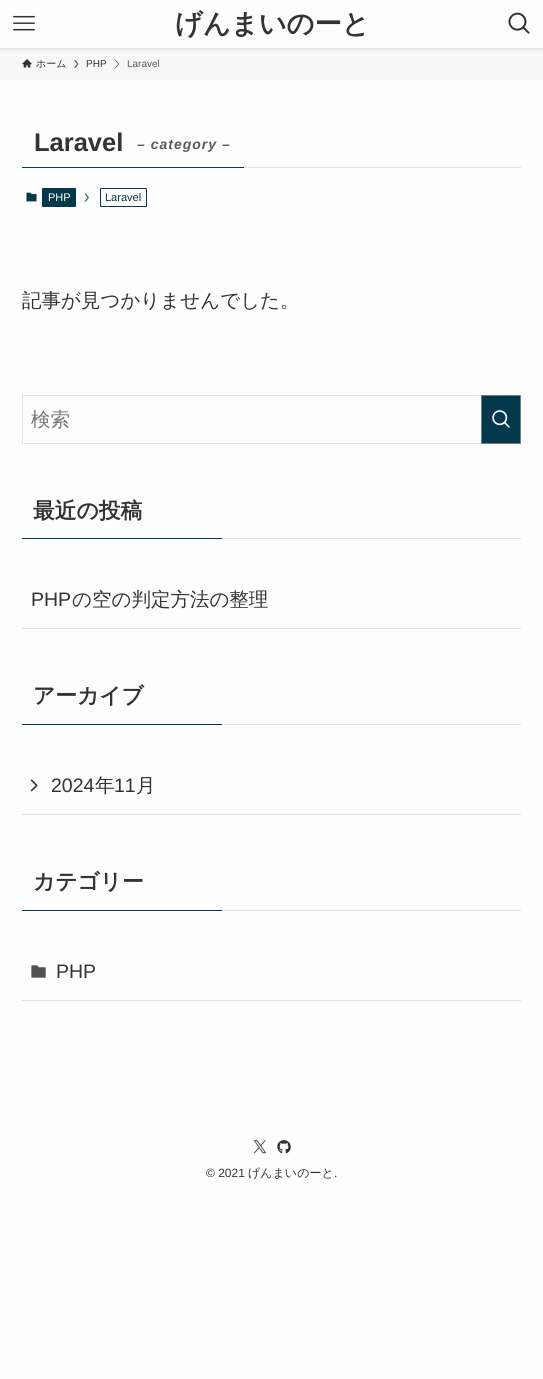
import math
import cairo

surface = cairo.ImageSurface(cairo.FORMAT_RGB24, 543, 1379)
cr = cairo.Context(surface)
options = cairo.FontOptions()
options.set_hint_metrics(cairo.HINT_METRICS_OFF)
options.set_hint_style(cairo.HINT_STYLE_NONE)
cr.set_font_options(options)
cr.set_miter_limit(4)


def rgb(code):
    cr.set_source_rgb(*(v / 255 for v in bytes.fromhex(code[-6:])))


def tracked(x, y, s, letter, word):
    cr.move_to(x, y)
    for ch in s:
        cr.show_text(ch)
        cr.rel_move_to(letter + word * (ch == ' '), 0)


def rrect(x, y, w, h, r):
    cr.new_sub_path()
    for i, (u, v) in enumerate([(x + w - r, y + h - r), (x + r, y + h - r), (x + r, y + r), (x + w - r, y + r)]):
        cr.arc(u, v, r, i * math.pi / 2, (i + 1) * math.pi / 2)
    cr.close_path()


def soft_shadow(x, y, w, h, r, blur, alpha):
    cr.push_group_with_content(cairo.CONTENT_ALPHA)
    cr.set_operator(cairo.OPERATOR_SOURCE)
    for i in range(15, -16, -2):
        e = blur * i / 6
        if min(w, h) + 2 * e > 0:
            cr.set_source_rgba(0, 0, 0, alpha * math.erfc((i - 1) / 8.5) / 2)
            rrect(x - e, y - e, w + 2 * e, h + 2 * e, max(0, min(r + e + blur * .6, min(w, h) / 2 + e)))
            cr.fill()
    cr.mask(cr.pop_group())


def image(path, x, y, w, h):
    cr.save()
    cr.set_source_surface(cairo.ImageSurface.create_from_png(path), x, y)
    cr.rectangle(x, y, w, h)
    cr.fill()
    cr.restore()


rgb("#fdfdfd")
cr.paint()
rgb("#f7f7f7")
cr.rectangle(0, 48, 543, 32)
cr.fill()
cr.save()
cr.rectangle(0, 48, 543, 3)
cr.clip()
rgb("#000000")
soft_shadow(0, 1, 543, 48, 0, 2, 0.12)
cr.restore()
image("img/1.png", 13, 15, 22, 16)
image("img/2.png", 508, 12, 22, 22)
image("img/3.png", 22, 59, 10, 9)
rgb("#5a5a5a")
cr.new_path()
cr.move_to(75.5, 60)
cr.line_to(74, 60)
cr.line_to(77, 64)
cr.line_to(74, 68)
cr.line_to(75.5, 68)
cr.line_to(78.5, 64)
cr.close_path()
cr.fill()
cr.new_path()
cr.move_to(116, 60)
cr.line_to(115, 60)
cr.line_to(118, 64)
cr.line_to(115, 68)
cr.line_to(116, 68)
cr.line_to(119, 64)
cr.close_path()
cr.fill()
rgb("#e2e2e2")
cr.rectangle(244, 167, 277, 1)
cr.fill()
rgb("#04384c")
cr.rectangle(22, 167, 222, 1)
cr.fill()
image("img/4.png", 26, 192, 11, 10)
rrect(42, 188, 34, 19, 1)
cr.fill()
rgb("#365f6f")
cr.new_path()
cr.move_to(86, 193.5)
cr.line_to(84.5, 193.5)
cr.line_to(87.5, 197.5)
cr.line_to(84.5, 201.5)
cr.line_to(86, 201.5)
cr.line_to(89, 197.5)
cr.close_path()
cr.fill()
rrect(100.5, 188.5, 46, 18, 0.5)
rgb("#04384c")
cr.set_line_width(1)
cr.stroke()
cr.rectangle(22.5, 395.5, 498, 48)
rgb("#e3e3e3")
cr.stroke()
rgb("#04384c")
cr.rectangle(481.5, 395.5, 39, 48)
cr.fill_preserve()
rgb("#66808a")
cr.stroke()
image("img/5.png", 492, 410, 18, 18)
for x, y, w, h, color in [
    (22, 538, 200, 1, "#04384c"),
    (222, 538, 299, 1, "#e2e2e2"),
    (22, 628, 499, 1, "#e2e2e2"),
    (22, 724, 200, 1, "#04384c"),
    (222, 724, 299, 1, "#e2e2e2"),
    (22, 814, 499, 1, "#e2e2e2"),
]:
    rgb(color)
    cr.rectangle(x, y, w, h)
    cr.fill()
image("img/6.png", 30, 779, 8, 13)
for x, y, w, h, color in [
    (22, 910, 200, 1, "#04384c"),
    (222, 910, 299, 1, "#e2e2e2"),
    (22, 1000, 499, 1, "#e2e2e2"),
]:
    rgb(color)
    cr.rectangle(x, y, w, h)
    cr.fill()
image("img/7.png", 31, 965, 15, 13)
image("img/8.png", 253, 1140, 14, 14)
image("img/9.png", 277, 1140, 14, 14)
cr.select_font_face("WenQuanYi Zen Hei", cairo.FONT_SLANT_NORMAL, cairo.FONT_WEIGHT_BOLD)
cr.set_font_size(27.25)
rgb("#333333")
cr.move_to(175, 33)
cr.show_text("げんまいのーと")
cr.select_font_face("WenQuanYi Zen Hei Medium")
cr.set_font_size(10)
cr.move_to(36, 67)
cr.show_text("ホーム")
cr.select_font_face("Liberation Sans")
cr.move_to(86, 67)
cr.show_text("PHP")
rgb("#5a5a5a")
cr.move_to(127, 67)
cr.show_text("Laravel")
cr.select_font_face("Liberation Sans", cairo.FONT_SLANT_NORMAL, cairo.FONT_WEIGHT_BOLD)
cr.set_font_size(25.5)
rgb("#333333")
cr.move_to(34, 151)
cr.show_text("Laravel")
cr.select_font_face("Liberation Sans", cairo.FONT_SLANT_ITALIC, cairo.FONT_WEIGHT_BOLD)
cr.set_font_size(14)
rgb("#5a5a5a")
tracked(137, 149, "– category –", 1, 0)
cr.select_font_face("Liberation Sans")
cr.set_font_size(11)
rgb("#ffffff")
cr.move_to(48, 201)
cr.show_text("PHP")
rgb("#04384c")
cr.move_to(105, 201)
cr.show_text("Laravel")
cr.select_font_face("WenQuanYi Zen Hei Medium")
cr.set_font_size(19.5)
rgb("#333333")
cr.move_to(22, 307)
cr.show_text("記事が見つかりませんでした。")
rgb("#757575")
cr.move_to(31, 426)
cr.show_text("検索")
cr.select_font_face("WenQuanYi Zen Hei", cairo.FONT_SLANT_NORMAL, cairo.FONT_WEIGHT_BOLD)
cr.set_font_size(21.75)
rgb("#333333")
cr.move_to(33, 518)
cr.show_text("最近の投稿")
cr.select_font_face("Liberation Sans")
cr.set_font_size(19.5)
cr.move_to(31, 606)
cr.show_text("PHP")
cr.select_font_face("WenQuanYi Zen Hei Medium")
cr.move_to(72, 606)
cr.show_text("の空の判定方法の整理")
cr.select_font_face("WenQuanYi Zen Hei", cairo.FONT_SLANT_NORMAL, cairo.FONT_WEIGHT_BOLD)
cr.set_font_size(21.75)
cr.move_to(33, 703)
cr.show_text("アーカイブ")
cr.select_font_face("Liberation Sans")
cr.set_font_size(19.5)
cr.move_to(51, 792)
cr.show_text("2024")
cr.select_font_face("WenQuanYi Zen Hei Medium")
cr.move_to(95, 792)
cr.show_text("年")
cr.select_font_face("Liberation Sans")
cr.move_to(114, 792)
cr.show_text("11")
cr.select_font_face("WenQuanYi Zen Hei Medium")
cr.move_to(136, 792)
cr.show_text("月")
cr.select_font_face("WenQuanYi Zen Hei", cairo.FONT_SLANT_NORMAL, cairo.FONT_WEIGHT_BOLD)
cr.set_font_size(21.75)
cr.move_to(33, 889)
cr.show_text("カテゴリー")
cr.select_font_face("Liberation Sans")
cr.set_font_size(19.5)
cr.move_to(56, 978)
cr.show_text("PHP")
cr.set_font_size(12)
cr.move_to(206, 1177)
cr.show_text("© 2021")
cr.select_font_face("WenQuanYi Zen Hei Medium")
cr.move_to(248, 1177)
cr.show_text("げんまいのーと")
cr.select_font_face("Liberation Sans")
cr.move_to(334, 1177)
cr.show_text(".")
surface.write_to_png("page.png")
